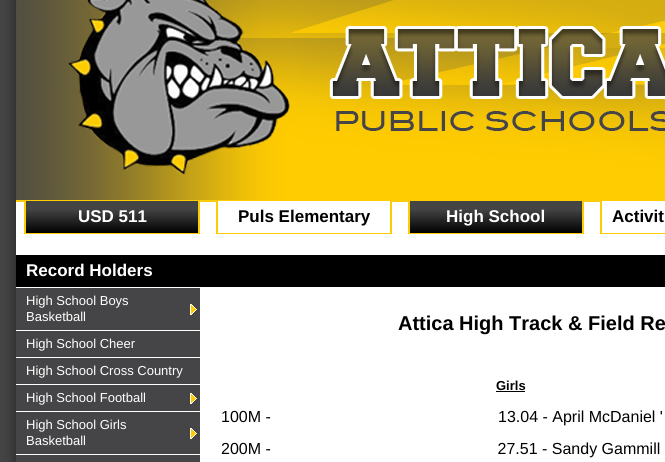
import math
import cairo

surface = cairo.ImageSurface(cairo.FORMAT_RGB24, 665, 462)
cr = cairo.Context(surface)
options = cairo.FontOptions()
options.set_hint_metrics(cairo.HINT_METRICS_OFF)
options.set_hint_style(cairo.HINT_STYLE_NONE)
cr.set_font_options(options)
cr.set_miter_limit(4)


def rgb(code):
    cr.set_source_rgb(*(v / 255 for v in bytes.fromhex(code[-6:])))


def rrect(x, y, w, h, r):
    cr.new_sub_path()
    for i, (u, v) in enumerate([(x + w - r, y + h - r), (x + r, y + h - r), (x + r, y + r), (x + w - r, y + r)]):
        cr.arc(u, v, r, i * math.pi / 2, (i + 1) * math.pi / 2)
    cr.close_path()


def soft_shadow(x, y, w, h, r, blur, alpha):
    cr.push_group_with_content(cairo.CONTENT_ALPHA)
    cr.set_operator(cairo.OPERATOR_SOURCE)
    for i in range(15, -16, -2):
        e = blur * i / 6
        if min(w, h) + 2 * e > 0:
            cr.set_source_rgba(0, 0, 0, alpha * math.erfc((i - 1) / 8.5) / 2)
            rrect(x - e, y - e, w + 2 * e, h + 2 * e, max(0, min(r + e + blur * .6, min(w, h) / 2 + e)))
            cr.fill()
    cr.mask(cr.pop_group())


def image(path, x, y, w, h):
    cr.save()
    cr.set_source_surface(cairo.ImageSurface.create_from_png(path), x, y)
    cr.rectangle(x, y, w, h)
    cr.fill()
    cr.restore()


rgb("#454545")
cr.paint()
rgb("#000000")
soft_shadow(16, -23, 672, 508, 0, 7.5, 0.5)
image("img/1.png", 16, 0, 590, 200)
image("img/2.png", 606, 0, 59, 200)
rgb("#ffffff")
cr.rectangle(16, 202, 649, 260)
cr.fill()
image("img/3.png", 16, 200, 584, 2)
gradient = cairo.LinearGradient(112, 201, 112, 233)
gradient.add_color_stop_rgba(0.25, 0.267, 0.267, 0.267, 1)
gradient.add_color_stop_rgba(1, 0, 0, 0, 1)
cr.set_source(gradient)
cr.rectangle(26, 201, 172, 32)
cr.fill()
for x, y, w, h, color in [
    (198, 200, 2, 34, "#ffcc01"),
    (24, 233, 176, 1, "#ffcc01"),
    (24, 200, 2, 34, "#ffcc01"),
    (218, 201, 172, 1, "#ffffff"),
    (390, 200, 2, 34, "#ffcc01"),
    (216, 233, 176, 1, "#ffcc01"),
    (216, 200, 2, 34, "#ffcc01"),
]:
    rgb(color)
    cr.rectangle(x, y, w, h)
    cr.fill()
gradient = cairo.LinearGradient(496, 201, 496, 233)
gradient.add_color_stop_rgba(0.25, 0.267, 0.267, 0.267, 1)
gradient.add_color_stop_rgba(1, 0, 0, 0, 1)
cr.set_source(gradient)
cr.rectangle(410, 201, 172, 32)
cr.fill()
for x, y, w, h, color in [
    (582, 200, 2, 34, "#ffcc01"),
    (408, 233, 176, 1, "#ffcc01"),
    (408, 200, 2, 34, "#ffcc01"),
    (602, 201, 63, 1, "#ffffff"),
    (600, 200, 65, 1, "#ffcc01"),
    (600, 233, 65, 1, "#ffcc01"),
    (600, 200, 2, 34, "#ffcc01"),
    (16, 288, 184, 174, "#454547"),
    (16, 255, 649, 32, "#000000"),
    (16, 330, 184, 1, "#ffffff"),
]:
    rgb(color)
    cr.rectangle(x, y, w, h)
    cr.fill()
image("img/4.png", 190, 304, 7, 11)
for x, y, w, h, color in [
    (16, 357, 184, 1, "#ffffff"),
    (16, 384, 184, 1, "#ffffff"),
    (16, 411, 184, 1, "#ffffff"),
]:
    rgb(color)
    cr.rectangle(x, y, w, h)
    cr.fill()
image("img/4.png", 190, 393, 7, 11)
cr.rectangle(16, 454, 184, 1)
cr.fill()
image("img/4.png", 190, 428, 7, 11)
rgb("#000000")
cr.rectangle(496, 391, 29, 1)
cr.fill()
cr.select_font_face("Liberation Sans", cairo.FONT_SLANT_NORMAL, cairo.FONT_WEIGHT_BOLD)
cr.set_font_size(17)
rgb("#ffffff")
cr.move_to(78, 222)
cr.show_text("USD 511")
rgb("#000000")
cr.move_to(238, 222)
cr.show_text("Puls Elementary")
rgb("#ffffff")
cr.move_to(446, 222)
cr.show_text("High School")
rgb("#000000")
cr.move_to(612, 222)
cr.show_text("Activit")
rgb("#ffffff")
cr.move_to(26, 276)
cr.show_text("Record Holders")
cr.select_font_face("Liberation Sans")
cr.set_font_size(13)
for x, y, s in [
    (26, 305, "High School Boys"),
    (26, 321, "Basketball"),
    (26, 348, "High School Cheer"),
    (26, 375, "High School Cross Country"),
    (26, 402, "High School Football"),
    (26, 429, "High School Girls"),
    (26, 445, "Basketball"),
]:
    cr.move_to(x, y)
    cr.show_text(s)
cr.select_font_face("Liberation Sans", cairo.FONT_SLANT_NORMAL, cairo.FONT_WEIGHT_BOLD)
cr.set_font_size(20)
rgb("#000000")
cr.move_to(398, 330)
cr.show_text("Attica High Track & Field Re")
cr.set_font_size(13)
cr.move_to(496, 390)
cr.show_text("Girls")
cr.select_font_face("Liberation Sans")
cr.set_font_size(16)
for x, y, s in [
    (221, 422, "100M -"),
    (498, 422, "13.04 - April McDaniel '"),
    (221, 454, "200M -                                                   27.51 - Sandy Gammill"),
]:
    cr.move_to(x, y)
    cr.show_text(s)
surface.write_to_png("page.png")
